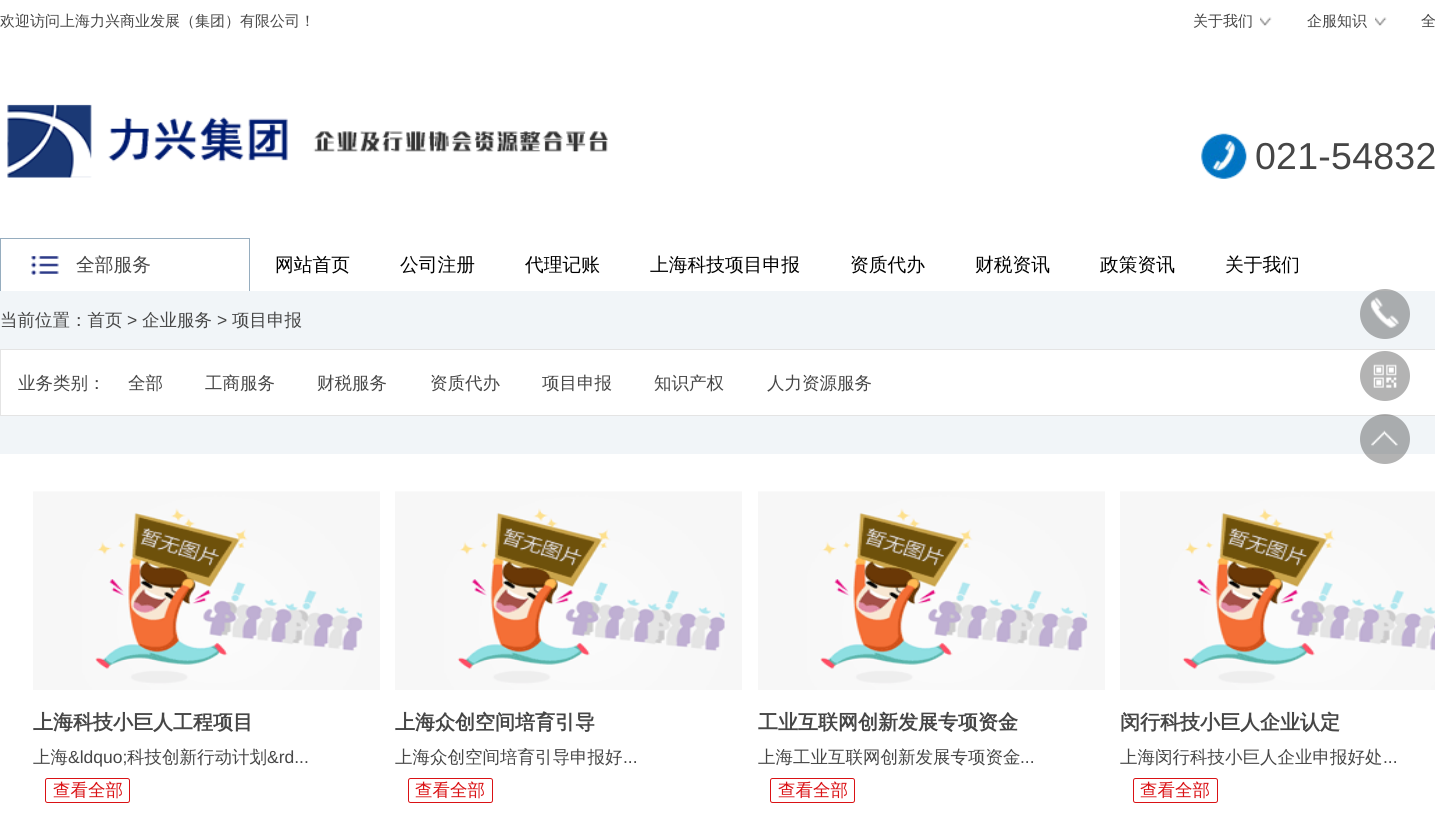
import math
import cairo

surface = cairo.ImageSurface(cairo.FORMAT_RGB24, 1435, 815)
cr = cairo.Context(surface)
options = cairo.FontOptions()
options.set_hint_metrics(cairo.HINT_METRICS_OFF)
options.set_hint_style(cairo.HINT_STYLE_NONE)
cr.set_font_options(options)
cr.set_miter_limit(4)


def rgb(code):
    cr.set_source_rgb(*(v / 255 for v in bytes.fromhex(code[-6:])))


def tracked(x, y, s, letter, word):
    cr.move_to(x, y)
    for ch in s:
        cr.show_text(ch)
        cr.rel_move_to(letter + word * (ch == ' '), 0)


def rrect(x, y, w, h, r):
    cr.new_sub_path()
    for i, (u, v) in enumerate([(x + w - r, y + h - r), (x + r, y + h - r), (x + r, y + r), (x + w - r, y + r)]):
        cr.arc(u, v, r, i * math.pi / 2, (i + 1) * math.pi / 2)
    cr.close_path()


def image(path, x, y, w, h):
    cr.save()
    cr.set_source_surface(cairo.ImageSurface.create_from_png(path), x, y)
    cr.rectangle(x, y, w, h)
    cr.fill()
    cr.restore()


rgb("#ffffff")
cr.paint()
image("img/1.png", 1260, 17, 12, 9)
image("img/1.png", 1375, 17, 12, 9)
image("img/2.png", 7, 104, 281, 74)
image("img/3.png", 313, 131, 295, 21)
image("img/4.png", 1201, 133, 46, 46)
image("img/5.png", 31, 256, 28, 19)
for x, y, w, h, color in [
    (0, 238, 250, 1, "#96adbf"),
    (249, 238, 1, 53, "#96adbf"),
    (0, 238, 1, 53, "#96adbf"),
    (0, 291, 1435, 163, "#f1f5f8"),
]:
    rgb(color)
    cr.rectangle(x, y, w, h)
    cr.fill()
cr.set_source_rgba(0, 0, 0, 0.3)
cr.arc(1385, 314, 25, 0, 2 * math.pi)
cr.fill()
image("img/6.png", 1370, 297, 29, 31)
rgb("#ffffff")
cr.rectangle(0.5, 349.5, 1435, 66)
cr.fill_preserve()
rgb("#e4e4e4")
cr.set_line_width(1)
cr.stroke()
rgb("#b3b3b3")
cr.arc(1385, 376, 25, 0, 2 * math.pi)
cr.fill()
image("img/7.png", 1373, 364, 24, 24)
cr.set_source_rgba(0, 0, 0, 0.3)
cr.arc(1385, 439, 25, 0, 2 * math.pi)
cr.fill()
image("img/8.png", 1371, 430, 27, 16)
image("img/9.png", 33, 491, 347, 199)
rrect(45.5, 778.5, 84, 24, 2)
rgb("#da1215")
cr.stroke()
image("img/10.png", 395, 491, 347, 199)
rrect(408.5, 778.5, 84, 24, 2)
cr.stroke()
image("img/9.png", 758, 491, 347, 199)
rrect(770.5, 778.5, 84, 24, 2)
cr.stroke()
image("img/11.png", 1120, 491, 315, 199)
rrect(1133.5, 778.5, 84, 24, 2)
cr.stroke()
cr.select_font_face("WenQuanYi Zen Hei Medium")
cr.set_font_size(15)
rgb("#464646")
for x, y, s in [
    (0, 26, "欢迎访问上海力兴商业发展（集团）有限公司！"),
    (1193, 26, "关于我们"),
    (1307, 26, "企服知识"),
    (1421, 26, "全"),
]:
    cr.move_to(x, y)
    cr.show_text(s)
cr.select_font_face("Liberation Sans")
cr.set_font_size(37.5)
tracked(1255, 169, "021-54832", 0.25, 0)
cr.select_font_face("WenQuanYi Zen Hei Medium")
cr.set_font_size(18.75)
cr.move_to(76, 271)
cr.show_text("全部服务")
rgb("#000000")
for x, y, s in [
    (275, 271, "网站首页"),
    (400, 271, "公司注册"),
    (525, 271, "代理记账"),
    (650, 271, "上海科技项目申报"),
    (850, 271, "资质代办"),
    (975, 271, "财税资讯"),
    (1100, 271, "政策资讯"),
    (1225, 271, "关于我们"),
]:
    cr.move_to(x, y)
    cr.show_text(s)
cr.set_font_size(17.5)
rgb("#464646")
cr.move_to(0, 326)
cr.show_text("当前位置：首页")
cr.select_font_face("Liberation Sans")
cr.move_to(127, 326)
cr.show_text(">")
cr.select_font_face("WenQuanYi Zen Hei Medium")
cr.move_to(142, 326)
cr.show_text("企业服务")
cr.select_font_face("Liberation Sans")
cr.move_to(217, 326)
cr.show_text(">")
cr.select_font_face("WenQuanYi Zen Hei Medium")
for x, y, s in [
    (232, 326, "项目申报"),
    (18, 389, "业务类别："),
    (128, 389, "全部"),
    (205, 389, "工商服务"),
    (317, 389, "财税服务"),
    (430, 389, "资质代办"),
    (542, 389, "项目申报"),
    (654, 389, "知识产权"),
    (767, 389, "人力资源服务"),
]:
    cr.move_to(x, y)
    cr.show_text(s)
cr.select_font_face("WenQuanYi Zen Hei", cairo.FONT_SLANT_NORMAL, cairo.FONT_WEIGHT_BOLD)
cr.set_font_size(20)
cr.move_to(33, 729)
cr.show_text("上海科技小巨人工程项目")
cr.select_font_face("WenQuanYi Zen Hei Medium")
cr.set_font_size(17.5)
cr.move_to(33, 763)
cr.show_text("上海")
cr.select_font_face("Liberation Sans")
cr.move_to(68, 763)
cr.show_text("&ldquo;")
cr.select_font_face("WenQuanYi Zen Hei Medium")
cr.move_to(127, 763)
cr.show_text("科技创新行动计划")
cr.select_font_face("Liberation Sans")
cr.move_to(267, 763)
cr.show_text("&rd...")
cr.select_font_face("WenQuanYi Zen Hei Medium")
rgb("#da1215")
cr.move_to(53, 796)
cr.show_text("查看全部")
cr.select_font_face("WenQuanYi Zen Hei", cairo.FONT_SLANT_NORMAL, cairo.FONT_WEIGHT_BOLD)
cr.set_font_size(20)
rgb("#464646")
cr.move_to(395, 729)
cr.show_text("上海众创空间培育引导")
cr.select_font_face("WenQuanYi Zen Hei Medium")
cr.set_font_size(17.5)
cr.move_to(395, 763)
cr.show_text("上海众创空间培育引导申报好")
cr.select_font_face("Liberation Sans")
cr.move_to(623, 763)
cr.show_text("...")
cr.select_font_face("WenQuanYi Zen Hei Medium")
rgb("#da1215")
cr.move_to(415, 796)
cr.show_text("查看全部")
cr.select_font_face("WenQuanYi Zen Hei", cairo.FONT_SLANT_NORMAL, cairo.FONT_WEIGHT_BOLD)
cr.set_font_size(20)
rgb("#464646")
cr.move_to(758, 729)
cr.show_text("工业互联网创新发展专项资金")
cr.select_font_face("WenQuanYi Zen Hei Medium")
cr.set_font_size(17.5)
cr.move_to(758, 763)
cr.show_text("上海工业互联网创新发展专项资金")
cr.select_font_face("Liberation Sans")
cr.move_to(1020, 763)
cr.show_text("...")
cr.select_font_face("WenQuanYi Zen Hei Medium")
rgb("#da1215")
cr.move_to(778, 796)
cr.show_text("查看全部")
cr.select_font_face("WenQuanYi Zen Hei", cairo.FONT_SLANT_NORMAL, cairo.FONT_WEIGHT_BOLD)
cr.set_font_size(20)
rgb("#464646")
cr.move_to(1120, 729)
cr.show_text("闵行科技小巨人企业认定")
cr.select_font_face("WenQuanYi Zen Hei Medium")
cr.set_font_size(17.5)
cr.move_to(1120, 763)
cr.show_text("上海闵行科技小巨人企业申报好处")
cr.select_font_face("Liberation Sans")
cr.move_to(1383, 763)
cr.show_text("...")
cr.select_font_face("WenQuanYi Zen Hei Medium")
rgb("#da1215")
cr.move_to(1140, 796)
cr.show_text("查看全部")
surface.write_to_png("page.png")
